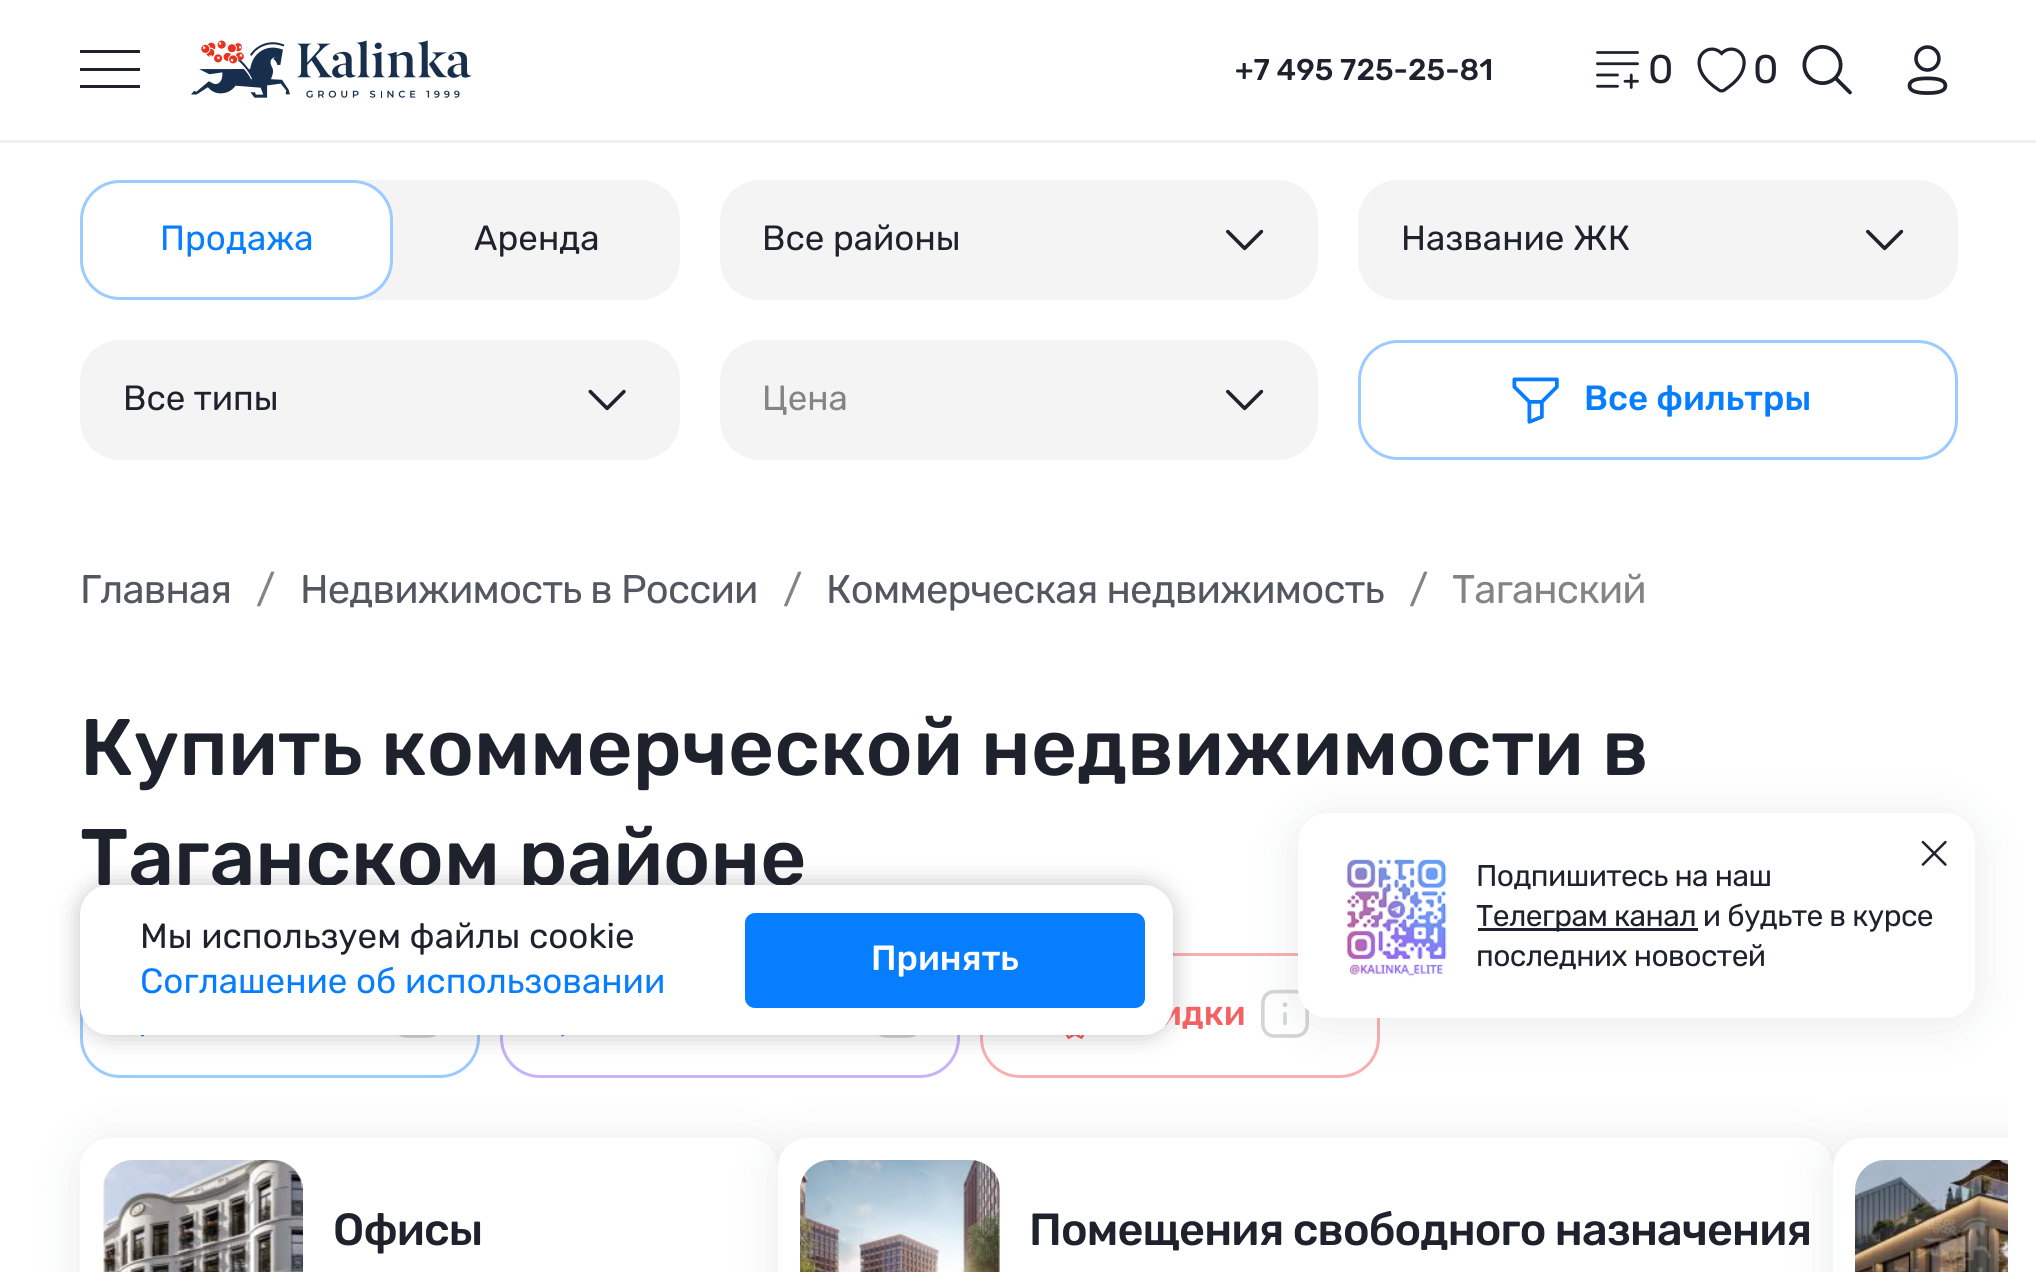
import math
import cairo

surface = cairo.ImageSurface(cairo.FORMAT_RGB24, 2036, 1272)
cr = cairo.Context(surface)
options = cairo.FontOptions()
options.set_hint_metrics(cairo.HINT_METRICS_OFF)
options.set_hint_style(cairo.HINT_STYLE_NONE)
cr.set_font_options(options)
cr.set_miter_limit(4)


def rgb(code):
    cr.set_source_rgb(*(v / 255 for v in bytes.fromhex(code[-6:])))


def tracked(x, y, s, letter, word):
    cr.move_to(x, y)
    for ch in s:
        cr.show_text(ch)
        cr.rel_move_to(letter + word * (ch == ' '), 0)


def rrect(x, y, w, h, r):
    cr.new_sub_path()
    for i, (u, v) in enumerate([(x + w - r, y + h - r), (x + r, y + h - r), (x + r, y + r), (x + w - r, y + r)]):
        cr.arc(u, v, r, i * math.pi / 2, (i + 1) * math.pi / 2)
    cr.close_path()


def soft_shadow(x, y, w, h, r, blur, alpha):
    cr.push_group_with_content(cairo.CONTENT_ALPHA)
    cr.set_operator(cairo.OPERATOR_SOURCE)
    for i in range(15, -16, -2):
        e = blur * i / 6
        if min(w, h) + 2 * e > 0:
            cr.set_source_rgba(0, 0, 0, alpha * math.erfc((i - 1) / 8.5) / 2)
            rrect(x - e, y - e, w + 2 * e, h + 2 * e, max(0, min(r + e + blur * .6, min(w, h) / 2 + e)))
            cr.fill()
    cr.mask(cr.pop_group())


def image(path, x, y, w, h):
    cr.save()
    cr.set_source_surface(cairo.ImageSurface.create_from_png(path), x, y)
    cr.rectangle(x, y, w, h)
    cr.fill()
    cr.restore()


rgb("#ffffff")
cr.paint()
for x, y, w, h, color in [
    (0, 140, 2036, 3, "#efefef"),
    (80, 68, 60, 3, "#1d222d"),
    (80, 50, 60, 3, "#1d222d"),
    (80, 85, 60, 3, "#1d222d"),
]:
    rgb(color)
    cr.rectangle(x, y, w, h)
    cr.fill()
image("img/1.png", 191, 40, 281, 58)
image("img/2.png", 1596, 51, 43, 38)
image("img/3.png", 1697, 47, 49, 46)
image("img/4.png", 1802, 45, 50, 50)
image("img/5.png", 1907, 45, 41, 50)
rgb("#f4f4f4")
rrect(80, 180, 600, 120, 40)
cr.fill()
rgb("#ffffff")
rrect(81.5, 181.5, 310, 117, 38.5)
cr.fill_preserve()
rgb("#9ccbff")
cr.set_line_width(3)
cr.stroke()
rgb("#f4f4f4")
rrect(721.5, 181.5, 595, 117, 38.5)
cr.fill_preserve()
cr.stroke()
image("img/6.png", 1226, 229, 38, 22)
rrect(1359.5, 181.5, 597, 117, 38.5)
cr.fill_preserve()
cr.stroke()
image("img/6.png", 1866, 229, 38, 22)
rrect(81.5, 341.5, 597, 117, 38.5)
cr.fill_preserve()
cr.stroke()
image("img/7.png", 588, 389, 38, 22)
rrect(721.5, 341.5, 595, 117, 38.5)
cr.fill_preserve()
cr.stroke()
image("img/6.png", 1226, 389, 38, 22)
rrect(1359.5, 341.5, 597, 117, 38.5)
rgb("#9ccbff")
cr.stroke()
image("img/8.png", 1512, 377, 47, 47)
rrect(81.5, 954.5, 397, 122, 38.5)
cr.stroke()
image("img/9.png", 140, 1035, 5, 2)
image("img/10.png", 398, 1035, 39, 3)
rrect(501.5, 954.5, 457, 122, 38.5)
rgb("#c8b2f9")
cr.stroke()
image("img/11.png", 560, 1035, 5, 2)
image("img/10.png", 878, 1035, 39, 3)
rrect(981.5, 954.5, 397, 122, 38.5)
rgb("#f9b0b1")
cr.stroke()
image("img/12.png", 1261, 989, 48, 49)
image("img/13.png", 1065, 1035, 20, 4)
rgb("#1d222d")
soft_shadow(80, 1143, 698, 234, 30, 25, 0.1)
rgb("#ffffff")
rrect(80, 1138, 698, 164, 30)
cr.fill()
image("img/14.png", 103, 1160, 200, 112)
rgb("#1d222d")
soft_shadow(778, 1143, 1055, 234, 30, 25, 0.1)
rgb("#ffffff")
rrect(778, 1138, 1055, 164, 30)
cr.fill()
image("img/15.png", 800, 1160, 200, 112)
cr.save()
cr.rectangle(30, 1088, 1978, 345)
cr.clip()
rgb("#1d222d")
soft_shadow(1833, 1143, 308, 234, 30, 25, 0.1)
cr.restore()
cr.new_path()
cr.move_to(1863, 1138)
cr.line_to(2008, 1138)
cr.line_to(2008, 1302)
cr.line_to(1863, 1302)
cr.curve_to(1846.5, 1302, 1833, 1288.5, 1833, 1272)
cr.line_to(1833, 1168)
cr.curve_to(1833, 1151.5, 1846.5, 1138, 1863, 1138)
cr.close_path()
cr.fill()
image("img/16.png", 1855, 1160, 153, 112)
rgb("#000000")
soft_shadow(80, 885, 1093, 150, 30, 12.5, 0.24)
rgb("#1d222d")
soft_shadow(1298, 818, 677, 205, 30, 25, 0.1)
rgb("#ffffff")
rrect(1298, 813, 677, 205, 30)
cr.fill()
image("img/17.png", 1921, 840, 26, 26)
image("img/18.png", 1346, 859, 101, 118)
rgb("#1d222d")
cr.rectangle(1478, 928, 220, 3)
cr.fill()
cr.select_font_face("Rubik Medium")
cr.set_font_size(30)
cr.move_to(1235, 80)
cr.show_text("+7 495 725-25-81")
cr.select_font_face("Rubik")
cr.set_font_size(40)
tracked(1648, 83, "0", -0.8, 0)
tracked(1753, 83, "0", -0.8, 0)
cr.set_font_size(35)
rgb("#077eff")
cr.move_to(160, 250)
cr.show_text("Продажа")
rgb("#1d222d")
for x, y, s in [
    (474, 250, "Аренда"),
    (762, 250, "Все районы"),
    (1401, 250, "Название ЖК"),
    (123, 410, "Все типы"),
]:
    cr.move_to(x, y)
    cr.show_text(s)
rgb("#848484")
cr.move_to(762, 410)
cr.show_text("Цена")
cr.select_font_face("Rubik Medium")
rgb("#077eff")
cr.move_to(1584, 410)
cr.show_text("Все фильтры")
cr.select_font_face("Rubik")
cr.set_font_size(40)
rgb("#53575f")
tracked(80, 603, "Главная", -0.8, 0)
rgb("#848484")
tracked(256, 603, "/", -0.8, 0)
rgb("#53575f")
tracked(300, 603, "Недвижимость в России", -0.8, 0)
rgb("#848484")
tracked(783, 603, "/", -0.8, 0)
rgb("#53575f")
tracked(826, 603, "Коммерческая недвижимость", -0.8, 0)
rgb("#848484")
tracked(1409, 603, "/", -0.8, 0)
tracked(1452, 603, "Таганский", -0.8, 0)
cr.select_font_face("Rubik Medium")
cr.set_font_size(80)
rgb("#1d222d")
cr.move_to(80, 775)
cr.show_text("Купить коммерческой недвижимости в")
cr.move_to(80, 885)
cr.show_text("Таганском районе")
cr.set_font_size(35)
rgb("#f36163")
cr.move_to(1160, 1025)
cr.show_text("идки")
cr.set_font_size(45)
rgb("#1d222d")
tracked(333, 1245, "Офисы", -0.9, 0)
tracked(1029, 1245, "Помещения свободного назначения", -0.9, 0)
rgb("#ffffff")
rrect(80, 885, 1093, 150, 30)
cr.fill()
cr.select_font_face("Rubik")
cr.set_font_size(35)
rgb("#1d222d")
cr.move_to(140, 948)
cr.show_text("Мы используем файлы cookie")
rgb("#077eff")
cr.move_to(140, 993)
cr.show_text("Соглашение об использовании")
rrect(745, 913, 400, 95, 10)
cr.fill()
cr.select_font_face("Rubik Medium")
rgb("#ffffff")
cr.move_to(871, 970)
cr.show_text("Принять")
cr.select_font_face("Rubik")
cr.set_font_size(30)
rgb("#1d222d")
for x, y, s in [
    (1476, 886, "Подпишитесь на наш"),
    (1476, 926, "Телеграм канал и будьте в курсе"),
    (1476, 966, "последних новостей"),
]:
    tracked(x, y, s, -0.6, 0)
surface.write_to_png("page.png")
